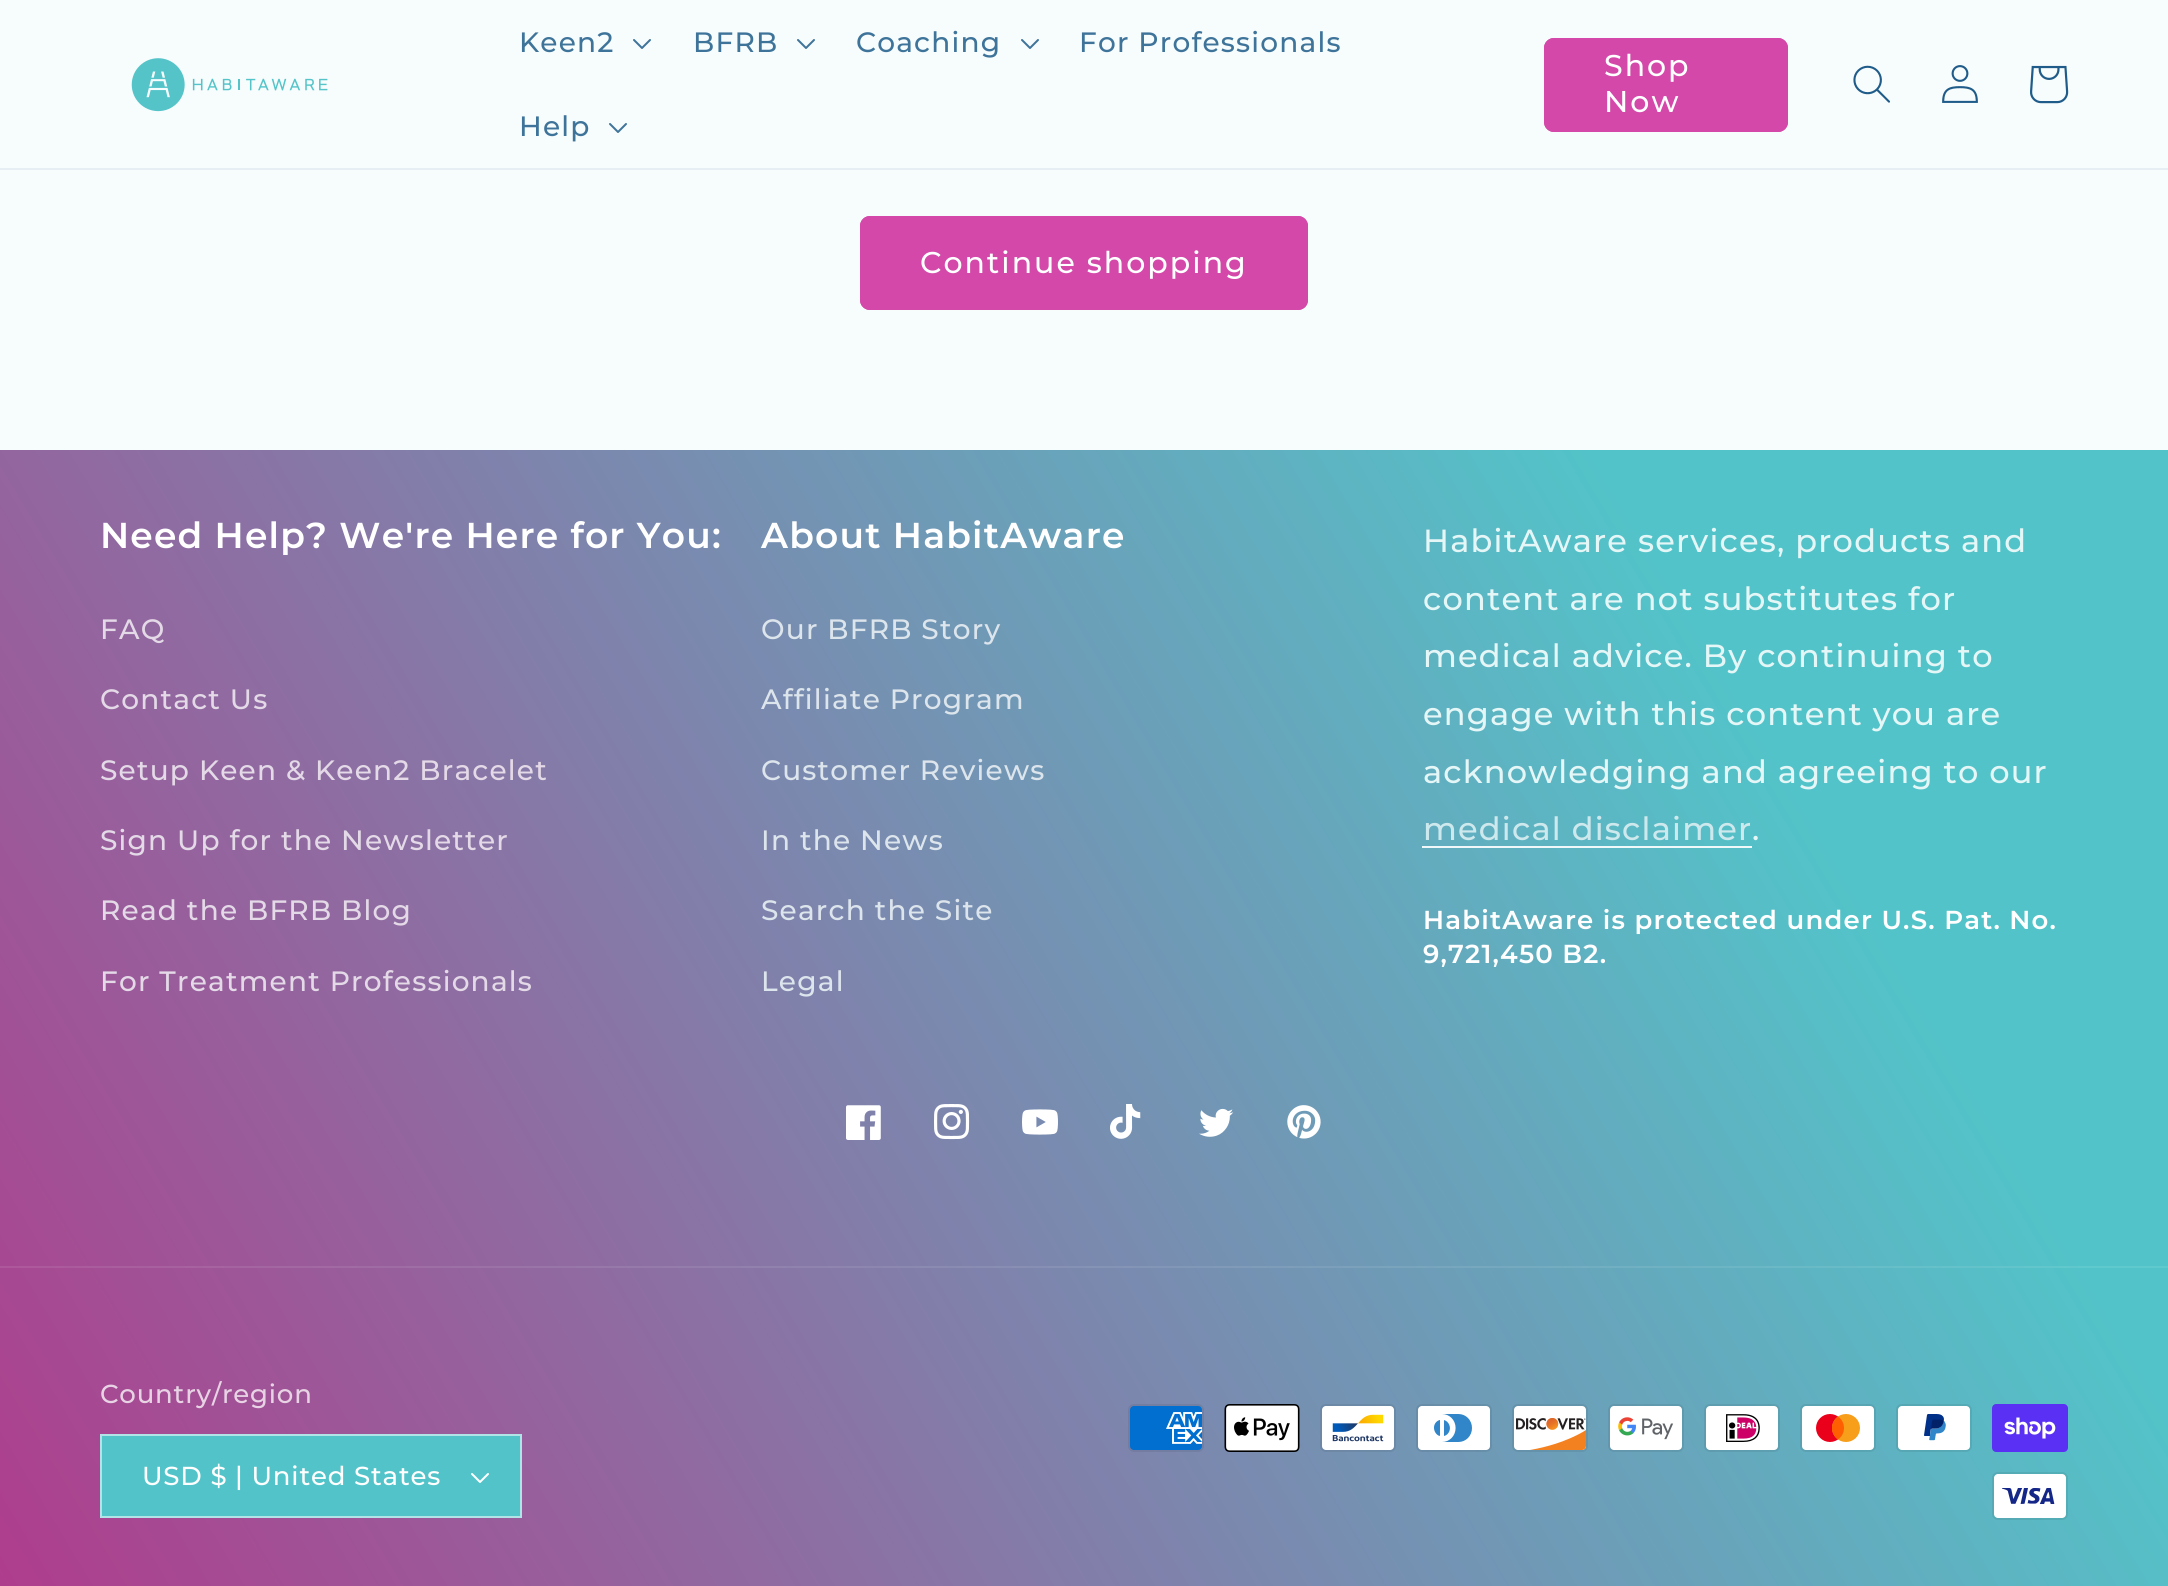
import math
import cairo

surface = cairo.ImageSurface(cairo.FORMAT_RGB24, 2168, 1586)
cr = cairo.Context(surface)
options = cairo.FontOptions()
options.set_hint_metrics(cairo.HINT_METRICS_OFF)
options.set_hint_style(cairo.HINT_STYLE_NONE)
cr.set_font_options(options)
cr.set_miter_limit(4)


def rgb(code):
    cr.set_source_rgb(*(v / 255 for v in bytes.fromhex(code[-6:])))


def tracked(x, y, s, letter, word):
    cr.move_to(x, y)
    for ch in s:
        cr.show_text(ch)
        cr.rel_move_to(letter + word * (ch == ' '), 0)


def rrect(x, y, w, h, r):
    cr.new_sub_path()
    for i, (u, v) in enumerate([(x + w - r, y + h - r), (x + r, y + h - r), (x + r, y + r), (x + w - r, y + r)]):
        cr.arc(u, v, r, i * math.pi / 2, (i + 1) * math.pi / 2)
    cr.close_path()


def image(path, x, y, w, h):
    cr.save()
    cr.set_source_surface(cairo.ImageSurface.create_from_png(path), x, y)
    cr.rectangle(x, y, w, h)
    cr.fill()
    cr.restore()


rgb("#f7fcfd")
cr.paint()
rgb("#e6eff4")
cr.rectangle(0, 168, 2168, 2)
cr.fill()
image("img/1.png", 131, 58, 197, 54)
image("img/2.png", 633, 39, 18, 10)
image("img/2.png", 797, 39, 18, 10)
image("img/2.png", 1021, 39, 18, 10)
image("img/2.png", 609, 123, 18, 10)
rgb("#d448aa")
rrect(1544, 38, 244, 94, 10)
cr.fill()
rrect(1545, 39, 242, 92, 9)
cr.stroke()
image("img/3.png", 1853, 65, 37, 38)
image("img/4.png", 1942, 65, 36, 38)
image("img/5.png", 2030, 65, 39, 39)
rrect(860, 216, 448, 94, 10)
cr.fill()
rrect(861, 217, 446, 92, 9)
cr.stroke()
gradient = cairo.LinearGradient(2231, 104, -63, 1482)
gradient.add_color_stop_rgba(0.27, 0.322, 0.769, 0.788, 1)
gradient.add_color_stop_rgba(1, 0.686, 0.239, 0.553, 1)
cr.set_source(gradient)
cr.rectangle(0, 450, 2168, 1136)
cr.fill()
gradient = cairo.LinearGradient(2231, 104, -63, 1482)
gradient.add_color_stop_rgba(0.27, 0.937, 0.98, 0.98, 1)
gradient.add_color_stop_rgba(1, 0.973, 0.933, 0.961, 1)
cr.set_source(gradient)
cr.rectangle(1422, 846, 330, 2)
cr.fill()
gradient = cairo.LinearGradient(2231, 104, -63, 1482)
gradient.add_color_stop_rgba(0.27, 0.376, 0.788, 0.804, 1)
gradient.add_color_stop_rgba(1, 0.71, 0.302, 0.588, 1)
cr.set_source(gradient)
cr.rectangle(0, 1266, 2168, 2)
cr.fill()
image("img/6.png", 846, 1105, 35, 35)
image("img/7.png", 934, 1104, 36, 36)
image("img/8.png", 1022, 1109, 36, 26)
image("img/9.png", 1110, 1104, 31, 35)
image("img/10.png", 1199, 1108, 35, 29)
image("img/11.png", 1287, 1105, 34, 34)
rgb("#52c4c9")
cr.rectangle(102, 1436, 418, 80)
cr.fill()
image("img/12.png", 471, 1473, 18, 10)
cr.rectangle(101, 1435, 420, 82)
rgb("#b1e4e7")
cr.stroke()
image("img/13.png", 1128, 1404, 76, 48)
image("img/14.png", 1224, 1404, 76, 48)
image("img/15.png", 1320, 1404, 76, 48)
image("img/16.png", 1416, 1404, 76, 48)
image("img/17.png", 1512, 1404, 76, 48)
image("img/18.png", 1608, 1404, 76, 48)
image("img/19.png", 1704, 1404, 76, 48)
image("img/20.png", 1800, 1404, 76, 48)
image("img/21.png", 1896, 1404, 76, 48)
image("img/22.png", 1992, 1404, 76, 48)
image("img/23.png", 1992, 1472, 76, 48)
cr.select_font_face("Montserrat Medium")
cr.set_font_size(28)
rgb("#3f749a")
for x, y, s in [
    (519, 52, "Keen2"),
    (693, 52, "BFRB"),
    (856, 52, "Coaching"),
    (1079, 52, "For Professionals"),
    (519, 136, "Help"),
]:
    tracked(x, y, s, 1.2, 0)
cr.set_font_size(30)
rgb("#ffffff")
for x, y, s in [
    (1604, 76, "Shop"),
    (1604, 112, "Now"),
    (920, 273, "Continue shopping"),
]:
    tracked(x, y, s, 2, 0)
cr.select_font_face("Montserrat SemiBold")
cr.set_font_size(36)
tracked(100, 548, "Need Help? We're Here for You:", 1.2, 0)
cr.select_font_face("Montserrat Medium")
cr.set_font_size(28)
rgb("#e4d9e7")
for x, y, s in [
    (100, 639, "FAQ"),
    (100, 709, "Contact Us"),
    (100, 780, "Setup Keen & Keen2 Bracelet"),
    (100, 850, "Sign Up for the Newsletter"),
    (100, 920, "Read the BFRB Blog"),
    (100, 991, "For Treatment Professionals"),
]:
    tracked(x, y, s, 1.2, 0)
cr.select_font_face("Montserrat SemiBold")
cr.set_font_size(36)
rgb("#ffffff")
tracked(761, 548, "About HabitAware", 1.2, 0)
cr.select_font_face("Montserrat Medium")
cr.set_font_size(28)
rgb("#dce4ec")
for x, y, s in [
    (761, 639, "Our BFRB Story"),
    (761, 709, "Affiliate Program"),
    (761, 780, "Customer Reviews"),
    (761, 850, "In the News"),
    (761, 920, "Search the Site"),
    (761, 991, "Legal"),
]:
    tracked(x, y, s, 1.2, 0)
cr.set_font_size(32)
rgb("#e5f6f7")
for x, y, s in [
    (1423, 552, "HabitAware services, products and"),
    (1423, 610, "content are not substitutes for"),
    (1423, 667, "medical advice. By continuing to"),
    (1423, 725, "engage with this content you are"),
    (1423, 783, "acknowledging and agreeing to our"),
]:
    tracked(x, y, s, 1.2, 0)
rgb("#cee9ed")
tracked(1423, 840, "medical disclaimer", 1.2, 0)
rgb("#e5f6f7")
tracked(1752, 840, ".", 1.2, 0)
cr.select_font_face("Montserrat SemiBold")
cr.set_font_size(26)
rgb("#ffffff")
tracked(1423, 929, "HabitAware is protected under U.S. Pat. No.", 1.2, 0)
tracked(1423, 963, "9,721,450 B2.", 1.2, 0)
cr.select_font_face("Montserrat Medium")
rgb("#e8d3e5")
tracked(100, 1403, "Country/region", 0.8, 0)
rgb("#ffffff")
tracked(142, 1485, "USD $ | United States", 0.8, 0)
surface.write_to_png("page.png")
